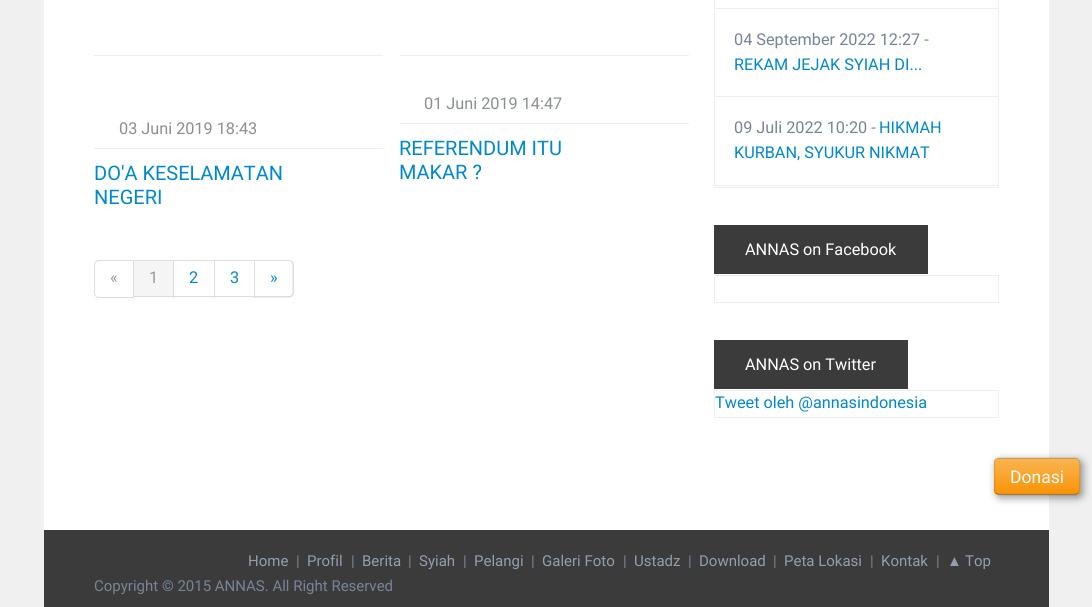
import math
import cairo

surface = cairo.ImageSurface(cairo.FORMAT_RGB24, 1092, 607)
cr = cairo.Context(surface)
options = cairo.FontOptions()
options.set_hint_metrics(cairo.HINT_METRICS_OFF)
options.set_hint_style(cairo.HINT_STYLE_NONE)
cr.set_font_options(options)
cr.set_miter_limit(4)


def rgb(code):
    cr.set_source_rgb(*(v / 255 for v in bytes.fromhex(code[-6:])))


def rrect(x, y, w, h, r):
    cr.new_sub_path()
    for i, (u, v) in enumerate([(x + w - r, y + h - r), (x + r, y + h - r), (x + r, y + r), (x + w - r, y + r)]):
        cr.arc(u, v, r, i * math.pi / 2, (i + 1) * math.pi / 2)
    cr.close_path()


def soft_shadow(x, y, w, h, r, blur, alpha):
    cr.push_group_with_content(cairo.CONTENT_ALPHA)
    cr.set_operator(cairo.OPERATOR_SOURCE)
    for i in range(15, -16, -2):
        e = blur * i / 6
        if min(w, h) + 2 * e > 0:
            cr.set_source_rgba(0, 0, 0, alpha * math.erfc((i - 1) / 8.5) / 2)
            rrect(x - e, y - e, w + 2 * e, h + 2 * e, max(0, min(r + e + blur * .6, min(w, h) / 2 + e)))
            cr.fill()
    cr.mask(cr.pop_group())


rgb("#f0f0f0")
cr.paint()
for x, y, w, h, color in [
    (44, 0, 1005, 530, "#ffffff"),
    (94, 55, 289, 1, "#eeeeee"),
    (94, 148, 289, 1, "#eeeeee"),
    (400, 55, 289, 1, "#eeeeee"),
    (400, 123, 289, 1, "#eeeeee"),
]:
    rgb(color)
    cr.rectangle(x, y, w, h)
    cr.fill()
cr.new_path()
cr.move_to(99, 260.5)
cr.line_to(133.5, 260.5)
cr.line_to(133.5, 297.5)
cr.line_to(99, 297.5)
cr.curve_to(96.5, 297.5, 94.5, 295.5, 94.5, 293)
cr.line_to(94.5, 265)
cr.curve_to(94.5, 262.5, 96.5, 260.5, 99, 260.5)
cr.close_path()
rgb("#dddddd")
cr.set_line_width(1)
cr.stroke()
for x, y, w, h, color in [
    (134, 261, 39, 35, "#f5f5f5"),
    (134, 260, 121, 1, "#dddddd"),
    (173, 260, 1, 38, "#dddddd"),
    (134, 296, 40, 1, "#dddddd"),
    (214, 260, 1, 38, "#dddddd"),
    (174, 296, 41, 1, "#dddddd"),
    (254, 260, 1, 38, "#dddddd"),
    (215, 296, 40, 1, "#dddddd"),
]:
    rgb(color)
    cr.rectangle(x, y, w, h)
    cr.fill()
cr.set_fill_rule(cairo.FILL_RULE_EVEN_ODD)
cr.new_path()
cr.move_to(255, 260)
cr.line_to(289, 260)
cr.curve_to(291.5, 260, 294, 262, 294, 265)
cr.line_to(294, 292.5)
cr.curve_to(294, 295.5, 291.5, 297.5, 289, 297.5)
cr.line_to(255, 297.5)
cr.close_path()
cr.move_to(255, 261)
cr.line_to(289, 261)
cr.curve_to(291, 261, 292.5, 263, 292.5, 265)
cr.line_to(292.5, 292.5)
cr.curve_to(292.5, 294.5, 291, 296, 289, 296)
cr.line_to(255, 296)
cr.close_path()
cr.fill()
cr.rectangle(714.5, -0.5, 284, 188)
rgb("#eeeeee")
cr.stroke()
for x, y, w, h, color in [
    (715, 8, 283, 1, "#eeeeee"),
    (715, 96, 283, 1, "#eeeeee"),
    (715, 185, 283, 1, "#eeeeee"),
    (714, 225, 214, 49, "#3b3b3b"),
]:
    rgb(color)
    cr.rectangle(x, y, w, h)
    cr.fill()
cr.rectangle(714.5, 275.5, 284, 27)
rgb("#eeeeee")
cr.stroke()
rgb("#3b3b3b")
cr.rectangle(714, 340, 194, 49)
cr.fill()
cr.rectangle(714.5, 390.5, 284, 27)
rgb("#eeeeee")
cr.stroke()
rgb("#3b3b3b")
cr.rectangle(44, 530, 1005, 77)
cr.fill()
rgb("#000000")
soft_shadow(996, 460, 87, 38, 5, 4, 0.4)
rgb("#dda351")
rrect(994, 458, 86, 37, 5)
cr.fill()
cr.save()
cr.set_fill_rule(cairo.FILL_RULE_WINDING)
rrect(994, 458, 86, 37, 5)
cr.clip()
gradient = cairo.LinearGradient(1037, 459, 1037, 494)
gradient.add_color_stop_rgba(0, 0.984, 0.706, 0.314, 1)
gradient.add_color_stop_rgba(1, 0.973, 0.58, 0.024, 1)
cr.set_source(gradient)
cr.rectangle(994, 459, 86, 35)
cr.fill()
cr.restore()
cr.new_path()
cr.move_to(1078, 493)
cr.line_to(1075.5, 494.5)
cr.line_to(998.5, 494.5)
cr.line_to(995.5, 493)
cr.set_source_rgba(0, 0, 0, 0.25)
cr.set_line_width(1.2)
cr.stroke()
cr.new_path()
cr.move_to(995.5, 493)
cr.curve_to(993.5, 491, 994.5, 488, 994.5, 485.5)
cr.line_to(994.5, 476)
cr.curve_to(994.5, 456, 991, 458, 1011.5, 458)
cr.line_to(1062.5, 458)
cr.curve_to(1082.5, 458, 1079.5, 456, 1079.5, 476)
cr.line_to(1079.5, 485.5)
cr.curve_to(1079.5, 488, 1080, 491, 1078, 493)
cr.set_source_rgba(0, 0, 0, 0.1)
cr.stroke()
cr.select_font_face("Roboto")
cr.set_font_size(16.25)
rgb("#8a8f90")
cr.move_to(119, 134)
cr.show_text("03 Juni 2019 18:43")
cr.set_font_size(20)
rgb("#0088cc")
cr.move_to(94, 180)
cr.show_text("DO'A KESELAMATAN")
cr.move_to(94, 204)
cr.show_text("NEGERI")
cr.set_font_size(16.25)
rgb("#8a8f90")
cr.move_to(424, 109)
cr.show_text("01 Juni 2019 14:47")
cr.set_font_size(20)
rgb("#0088cc")
cr.move_to(399, 155)
cr.show_text("REFERENDUM ITU")
cr.move_to(399, 179)
cr.show_text("MAKAR ?")
cr.set_font_size(16.25)
rgb("#999999")
cr.move_to(110, 283)
cr.show_text("«")
cr.move_to(149, 283)
cr.show_text("1")
rgb("#0088cc")
for x, y, s in [
    (189, 283, "2"),
    (230, 283, "3"),
    (270, 283, "»"),
]:
    cr.move_to(x, y)
    cr.show_text(s)
rgb("#778497")
cr.move_to(734, 45)
cr.show_text("04 September 2022 12:27 -")
rgb("#0088cc")
cr.move_to(734, 70)
cr.show_text("REKAM JEJAK SYIAH DI...")
rgb("#778497")
cr.move_to(734, 133)
cr.show_text("09 Juli 2022 10:20 -")
rgb("#0088cc")
cr.move_to(879, 133)
cr.show_text("HIKMAH")
cr.move_to(734, 158)
cr.show_text("KURBAN, SYUKUR NIKMAT")
rgb("#ffffff")
cr.move_to(745, 255)
cr.show_text("ANNAS on Facebook")
cr.move_to(745, 370)
cr.show_text("ANNAS on Twitter")
rgb("#0088cc")
cr.move_to(715, 408)
cr.show_text("Tweet oleh @annasindonesia")
cr.set_font_size(15)
rgb("#939ead")
cr.move_to(248, 566)
cr.show_text("Home")
rgb("#778497")
cr.move_to(296, 566)
cr.show_text("|")
rgb("#939ead")
cr.move_to(307, 566)
cr.show_text("Profil")
rgb("#778497")
cr.move_to(351, 566)
cr.show_text("|")
rgb("#939ead")
cr.move_to(362, 566)
cr.show_text("Berita")
rgb("#778497")
cr.move_to(408, 566)
cr.show_text("|")
rgb("#939ead")
cr.move_to(419, 566)
cr.show_text("Syiah")
rgb("#778497")
cr.move_to(463, 566)
cr.show_text("|")
rgb("#939ead")
cr.move_to(474, 566)
cr.show_text("Pelangi")
rgb("#778497")
cr.move_to(531, 566)
cr.show_text("|")
rgb("#939ead")
cr.move_to(542, 566)
cr.show_text("Galeri Foto")
rgb("#778497")
cr.move_to(623, 566)
cr.show_text("|")
rgb("#939ead")
cr.move_to(634, 566)
cr.show_text("Ustadz")
rgb("#778497")
cr.move_to(688, 566)
cr.show_text("|")
rgb("#939ead")
cr.move_to(699, 566)
cr.show_text("Download")
rgb("#778497")
cr.move_to(773, 566)
cr.show_text("|")
rgb("#939ead")
cr.move_to(784, 566)
cr.show_text("Peta Lokasi")
rgb("#778497")
cr.move_to(870, 566)
cr.show_text("|")
rgb("#939ead")
cr.move_to(881, 566)
cr.show_text("Kontak")
rgb("#778497")
cr.move_to(936, 566)
cr.show_text("|")
cr.select_font_face("Liberation Sans")
rgb("#939ead")
cr.move_to(947, 566)
cr.show_text("▲")
cr.select_font_face("Roboto")
cr.move_to(965, 566)
cr.show_text("Top")
rgb("#778497")
cr.move_to(94, 591)
cr.show_text("Copyright © 2015 ANNAS. All Right Reserved")
cr.set_font_size(17.5)
rgb("#ffffff")
cr.move_to(1010, 483)
cr.show_text("Donasi")
surface.write_to_png("page.png")
